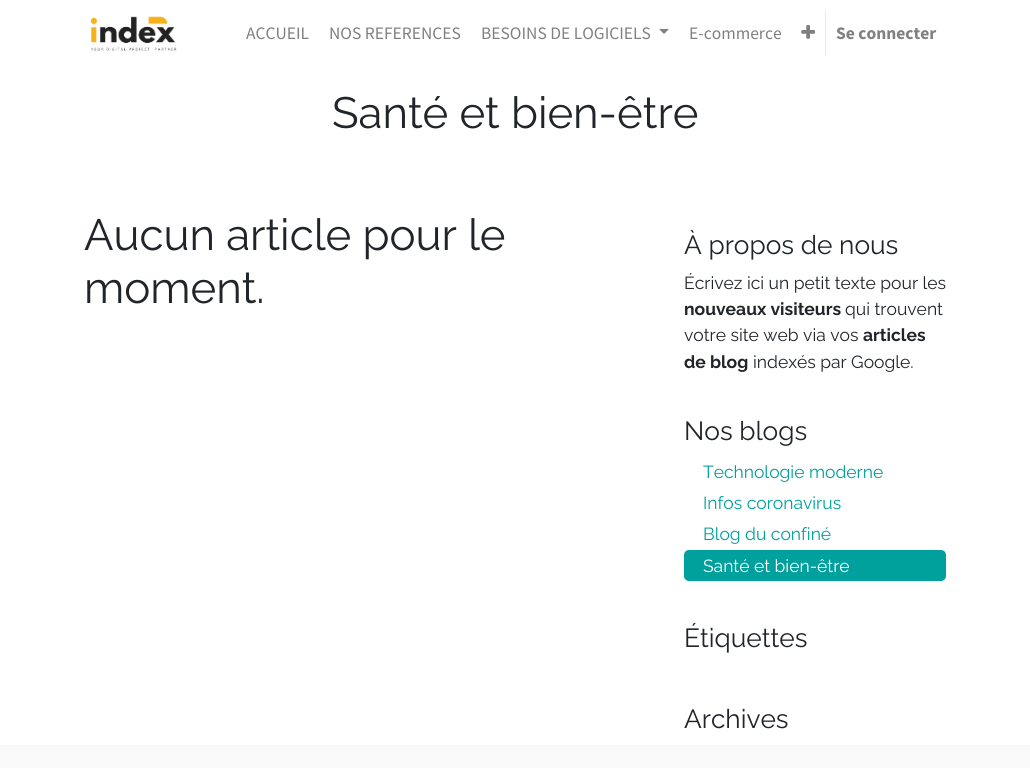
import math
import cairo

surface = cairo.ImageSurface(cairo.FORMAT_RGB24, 1030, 768)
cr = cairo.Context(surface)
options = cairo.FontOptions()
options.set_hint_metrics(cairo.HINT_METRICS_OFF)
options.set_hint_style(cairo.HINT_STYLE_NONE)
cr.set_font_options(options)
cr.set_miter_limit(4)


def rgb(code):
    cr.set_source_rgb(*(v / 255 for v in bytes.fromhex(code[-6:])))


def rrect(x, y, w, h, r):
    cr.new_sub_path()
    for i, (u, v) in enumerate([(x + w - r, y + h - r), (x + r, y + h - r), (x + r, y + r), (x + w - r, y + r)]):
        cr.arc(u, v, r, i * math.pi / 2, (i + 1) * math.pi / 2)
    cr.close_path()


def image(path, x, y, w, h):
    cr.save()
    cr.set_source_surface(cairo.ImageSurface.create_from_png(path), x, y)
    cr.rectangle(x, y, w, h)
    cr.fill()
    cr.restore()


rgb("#ffffff")
cr.paint()
image("img/1.png", 90, 16, 87, 35)
rgb("#808080")
cr.new_path()
cr.move_to(659, 29)
cr.line_to(669, 29)
cr.line_to(664, 34)
cr.close_path()
cr.fill()
image("img/2.png", 801, 25, 14, 14)
rgb("#e9ecef")
cr.rectangle(825, 10, 1, 46)
cr.fill()
rgb("#00a09d")
rrect(684, 550, 262, 31, 5)
cr.fill()
rgb("#f9f9f9")
cr.rectangle(0, 745, 1030, 23)
cr.fill()
cr.select_font_face("Source Sans Pro")
cr.set_font_size(17.5)
rgb("#808080")
for x, y, s in [
    (246, 39, "ACCUEIL"),
    (329, 39, "NOS REFERENCES"),
    (481, 39, "BESOINS DE LOGICIELS"),
    (689, 39, "E-commerce"),
]:
    cr.move_to(x, y)
    cr.show_text(s)
cr.select_font_face("Source Sans Pro", cairo.FONT_SLANT_NORMAL, cairo.FONT_WEIGHT_BOLD)
cr.move_to(836, 39)
cr.show_text("Se connecter")
cr.select_font_face("Raleway")
cr.set_font_size(43.75)
rgb("#212529")
for x, y, s in [
    (332, 128, "Santé et bien-être"),
    (84, 250, "Aucun article pour le"),
    (84, 303, "moment."),
]:
    cr.move_to(x, y)
    cr.show_text(s)
cr.set_font_size(26.25)
cr.move_to(684, 254)
cr.show_text("À propos de nous")
cr.set_font_size(17.5)
cr.move_to(684, 289)
cr.show_text("Écrivez ici un petit texte pour les")
cr.select_font_face("Raleway", cairo.FONT_SLANT_NORMAL, cairo.FONT_WEIGHT_BOLD)
cr.move_to(684, 315)
cr.show_text("nouveaux visiteurs")
cr.select_font_face("Raleway")
cr.move_to(845, 315)
cr.show_text("qui trouvent")
cr.move_to(684, 341)
cr.show_text("votre site web via vos")
cr.select_font_face("Raleway", cairo.FONT_SLANT_NORMAL, cairo.FONT_WEIGHT_BOLD)
cr.move_to(863, 341)
cr.show_text("articles")
cr.move_to(684, 368)
cr.show_text("de blog")
cr.select_font_face("Raleway")
cr.move_to(753, 368)
cr.show_text("indexés par Google.")
cr.set_font_size(26.25)
cr.move_to(684, 440)
cr.show_text("Nos blogs")
cr.set_font_size(17.5)
rgb("#00a09d")
for x, y, s in [
    (703, 478, "Technologie moderne"),
    (703, 509, "Infos coronavirus"),
    (703, 540, "Blog du confiné"),
]:
    cr.move_to(x, y)
    cr.show_text(s)
rgb("#ffffff")
cr.move_to(703, 572)
cr.show_text("Santé et bien-être")
cr.set_font_size(26.25)
rgb("#212529")
cr.move_to(684, 647)
cr.show_text("Étiquettes")
cr.move_to(684, 728)
cr.show_text("Archives")
surface.write_to_png("page.png")
